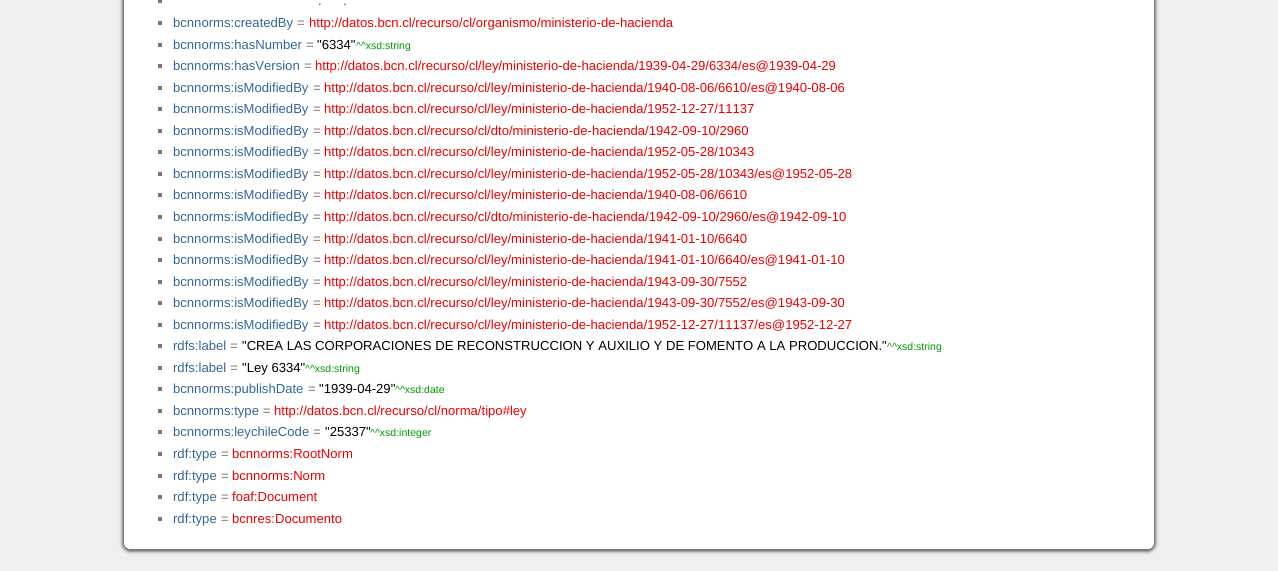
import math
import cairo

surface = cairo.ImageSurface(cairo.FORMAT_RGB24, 1278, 571)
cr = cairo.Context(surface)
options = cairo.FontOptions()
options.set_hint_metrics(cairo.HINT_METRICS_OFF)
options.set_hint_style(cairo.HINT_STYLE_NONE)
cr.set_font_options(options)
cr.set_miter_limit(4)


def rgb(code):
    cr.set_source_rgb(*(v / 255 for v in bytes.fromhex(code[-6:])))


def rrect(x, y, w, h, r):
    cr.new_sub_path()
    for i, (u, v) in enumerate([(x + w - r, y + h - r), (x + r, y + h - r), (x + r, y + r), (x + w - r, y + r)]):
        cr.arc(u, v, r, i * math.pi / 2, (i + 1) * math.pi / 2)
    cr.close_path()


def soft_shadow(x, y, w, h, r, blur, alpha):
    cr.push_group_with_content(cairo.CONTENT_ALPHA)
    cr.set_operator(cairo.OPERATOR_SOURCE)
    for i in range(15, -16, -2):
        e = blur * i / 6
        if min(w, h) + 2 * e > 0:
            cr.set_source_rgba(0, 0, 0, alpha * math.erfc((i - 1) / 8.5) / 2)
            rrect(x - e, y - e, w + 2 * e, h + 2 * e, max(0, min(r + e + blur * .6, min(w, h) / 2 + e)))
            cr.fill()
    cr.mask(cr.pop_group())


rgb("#efefef")
cr.paint()
rgb("#333333")
soft_shadow(123, -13, 1032, 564, 7, 2, 1)
rgb("#ffffff")
rrect(123.5, -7.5, 1031, 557, 6.5)
cr.fill_preserve()
rgb("#777777")
cr.set_line_width(1)
cr.stroke()
for x, y, w, h, color in [
    (158, 0, 4, 3, "#777777"),
    (158, 21, 4, 4, "#777777"),
    (158, 43, 4, 4, "#777777"),
    (158, 64, 4, 4, "#777777"),
    (158, 86, 4, 4, "#777777"),
    (158, 107, 4, 4, "#777777"),
    (158, 129, 4, 4, "#777777"),
    (158, 150, 4, 4, "#777777"),
    (158, 172, 4, 4, "#777777"),
    (158, 193, 4, 4, "#777777"),
    (158, 215, 4, 4, "#777777"),
    (158, 237, 4, 4, "#777777"),
    (158, 258, 4, 4, "#777777"),
    (158, 280, 4, 4, "#777777"),
    (158, 301, 4, 4, "#777777"),
    (158, 323, 4, 4, "#777777"),
    (158, 344, 4, 4, "#777777"),
    (158, 366, 4, 4, "#777777"),
    (158, 387, 4, 4, "#777777"),
    (158, 409, 4, 4, "#777777"),
    (158, 430, 4, 4, "#777777"),
    (158, 452, 4, 4, "#777777"),
    (158, 474, 4, 4, "#777777"),
    (158, 495, 4, 4, "#777777"),
    (158, 517, 4, 4, "#777777"),
]:
    rgb(color)
    cr.rectangle(x, y, w, h)
    cr.fill()
cr.select_font_face("Liberation Sans")
cr.set_font_size(13.1)
rgb("#ee0000")
cr.move_to(318, 5)
cr.show_text(".")
cr.move_to(343, 5)
cr.show_text(".")
rgb("#336699")
cr.move_to(173, 27)
cr.show_text("bcnnorms:createdBy")
rgb("#777777")
cr.move_to(297, 27)
cr.show_text("=")
rgb("#ee0000")
cr.move_to(309, 27)
cr.show_text("http://datos.bcn.cl/recurso/cl/organismo/ministerio-de-hacienda")
rgb("#336699")
cr.move_to(173, 49)
cr.show_text("bcnnorms:hasNumber")
rgb("#777777")
cr.move_to(306, 49)
cr.show_text("=")
rgb("#000000")
cr.move_to(317, 49)
cr.show_text("\"6334\"")
cr.set_font_size(10.5)
rgb("#009900")
cr.move_to(356, 49)
cr.show_text("^^xsd:string")
cr.set_font_size(13.1)
rgb("#336699")
cr.move_to(173, 70)
cr.show_text("bcnnorms:hasVersion")
rgb("#777777")
cr.move_to(304, 70)
cr.show_text("=")
rgb("#ee0000")
cr.move_to(315, 70)
cr.show_text("http://datos.bcn.cl/recurso/cl/ley/ministerio-de-hacienda/1939-04-29/6334/es@1939-04-29")
rgb("#336699")
cr.move_to(173, 92)
cr.show_text("bcnnorms:isModifiedBy")
rgb("#777777")
cr.move_to(313, 92)
cr.show_text("=")
rgb("#ee0000")
cr.move_to(324, 92)
cr.show_text("http://datos.bcn.cl/recurso/cl/ley/ministerio-de-hacienda/1940-08-06/6610/es@1940-08-06")
rgb("#336699")
cr.move_to(173, 113)
cr.show_text("bcnnorms:isModifiedBy")
rgb("#777777")
cr.move_to(313, 113)
cr.show_text("=")
rgb("#ee0000")
cr.move_to(324, 113)
cr.show_text("http://datos.bcn.cl/recurso/cl/ley/ministerio-de-hacienda/1952-12-27/11137")
rgb("#336699")
cr.move_to(173, 135)
cr.show_text("bcnnorms:isModifiedBy")
rgb("#777777")
cr.move_to(313, 135)
cr.show_text("=")
rgb("#ee0000")
cr.move_to(324, 135)
cr.show_text("http://datos.bcn.cl/recurso/cl/dto/ministerio-de-hacienda/1942-09-10/2960")
rgb("#336699")
cr.move_to(173, 156)
cr.show_text("bcnnorms:isModifiedBy")
rgb("#777777")
cr.move_to(313, 156)
cr.show_text("=")
rgb("#ee0000")
cr.move_to(324, 156)
cr.show_text("http://datos.bcn.cl/recurso/cl/ley/ministerio-de-hacienda/1952-05-28/10343")
rgb("#336699")
cr.move_to(173, 178)
cr.show_text("bcnnorms:isModifiedBy")
rgb("#777777")
cr.move_to(313, 178)
cr.show_text("=")
rgb("#ee0000")
cr.move_to(324, 178)
cr.show_text("http://datos.bcn.cl/recurso/cl/ley/ministerio-de-hacienda/1952-05-28/10343/es@1952-05-28")
rgb("#336699")
cr.move_to(173, 199)
cr.show_text("bcnnorms:isModifiedBy")
rgb("#777777")
cr.move_to(313, 199)
cr.show_text("=")
rgb("#ee0000")
cr.move_to(324, 199)
cr.show_text("http://datos.bcn.cl/recurso/cl/ley/ministerio-de-hacienda/1940-08-06/6610")
rgb("#336699")
cr.move_to(173, 221)
cr.show_text("bcnnorms:isModifiedBy")
rgb("#777777")
cr.move_to(313, 221)
cr.show_text("=")
rgb("#ee0000")
cr.move_to(324, 221)
cr.show_text("http://datos.bcn.cl/recurso/cl/dto/ministerio-de-hacienda/1942-09-10/2960/es@1942-09-10")
rgb("#336699")
cr.move_to(173, 243)
cr.show_text("bcnnorms:isModifiedBy")
rgb("#777777")
cr.move_to(313, 243)
cr.show_text("=")
rgb("#ee0000")
cr.move_to(324, 243)
cr.show_text("http://datos.bcn.cl/recurso/cl/ley/ministerio-de-hacienda/1941-01-10/6640")
rgb("#336699")
cr.move_to(173, 264)
cr.show_text("bcnnorms:isModifiedBy")
rgb("#777777")
cr.move_to(313, 264)
cr.show_text("=")
rgb("#ee0000")
cr.move_to(324, 264)
cr.show_text("http://datos.bcn.cl/recurso/cl/ley/ministerio-de-hacienda/1941-01-10/6640/es@1941-01-10")
rgb("#336699")
cr.move_to(173, 286)
cr.show_text("bcnnorms:isModifiedBy")
rgb("#777777")
cr.move_to(313, 286)
cr.show_text("=")
rgb("#ee0000")
cr.move_to(324, 286)
cr.show_text("http://datos.bcn.cl/recurso/cl/ley/ministerio-de-hacienda/1943-09-30/7552")
rgb("#336699")
cr.move_to(173, 307)
cr.show_text("bcnnorms:isModifiedBy")
rgb("#777777")
cr.move_to(313, 307)
cr.show_text("=")
rgb("#ee0000")
cr.move_to(324, 307)
cr.show_text("http://datos.bcn.cl/recurso/cl/ley/ministerio-de-hacienda/1943-09-30/7552/es@1943-09-30")
rgb("#336699")
cr.move_to(173, 329)
cr.show_text("bcnnorms:isModifiedBy")
rgb("#777777")
cr.move_to(313, 329)
cr.show_text("=")
rgb("#ee0000")
cr.move_to(324, 329)
cr.show_text("http://datos.bcn.cl/recurso/cl/ley/ministerio-de-hacienda/1952-12-27/11137/es@1952-12-27")
rgb("#336699")
cr.move_to(173, 350)
cr.show_text("rdfs:label")
rgb("#777777")
cr.move_to(230, 350)
cr.show_text("=")
rgb("#000000")
cr.move_to(242, 350)
cr.show_text("\"CREA LAS CORPORACIONES DE RECONSTRUCCION Y AUXILIO Y DE FOMENTO A LA PRODUCCION.\"")
cr.set_font_size(10.5)
rgb("#009900")
cr.move_to(887, 350)
cr.show_text("^^xsd:string")
cr.set_font_size(13.1)
rgb("#336699")
cr.move_to(173, 372)
cr.show_text("rdfs:label")
rgb("#777777")
cr.move_to(230, 372)
cr.show_text("=")
rgb("#000000")
cr.move_to(242, 372)
cr.show_text("\"Ley 6334\"")
cr.set_font_size(10.5)
rgb("#009900")
cr.move_to(305, 372)
cr.show_text("^^xsd:string")
cr.set_font_size(13.1)
rgb("#336699")
cr.move_to(173, 393)
cr.show_text("bcnnorms:publishDate")
rgb("#777777")
cr.move_to(308, 393)
cr.show_text("=")
rgb("#000000")
cr.move_to(319, 393)
cr.show_text("\"1939-04-29\"")
cr.set_font_size(10.5)
rgb("#009900")
cr.move_to(395, 393)
cr.show_text("^^xsd:date")
cr.set_font_size(13.1)
rgb("#336699")
cr.move_to(173, 415)
cr.show_text("bcnnorms:type")
rgb("#777777")
cr.move_to(263, 415)
cr.show_text("=")
rgb("#ee0000")
cr.move_to(274, 415)
cr.show_text("http://datos.bcn.cl/recurso/cl/norma/tipo#ley")
rgb("#336699")
cr.move_to(173, 436)
cr.show_text("bcnnorms:leychileCode")
rgb("#777777")
cr.move_to(313, 436)
cr.show_text("=")
rgb("#000000")
cr.move_to(325, 436)
cr.show_text("\"25337\"")
cr.set_font_size(10.5)
rgb("#009900")
cr.move_to(370, 436)
cr.show_text("^^xsd:integer")
cr.set_font_size(13.1)
rgb("#336699")
cr.move_to(173, 458)
cr.show_text("rdf:type")
rgb("#777777")
cr.move_to(221, 458)
cr.show_text("=")
rgb("#ee0000")
cr.move_to(232, 458)
cr.show_text("bcnnorms:RootNorm")
rgb("#336699")
cr.move_to(173, 480)
cr.show_text("rdf:type")
rgb("#777777")
cr.move_to(221, 480)
cr.show_text("=")
rgb("#ee0000")
cr.move_to(232, 480)
cr.show_text("bcnnorms:Norm")
rgb("#336699")
cr.move_to(173, 501)
cr.show_text("rdf:type")
rgb("#777777")
cr.move_to(221, 501)
cr.show_text("=")
rgb("#ee0000")
cr.move_to(232, 501)
cr.show_text("foaf:Document")
rgb("#336699")
cr.move_to(173, 523)
cr.show_text("rdf:type")
rgb("#777777")
cr.move_to(221, 523)
cr.show_text("=")
rgb("#ee0000")
cr.move_to(232, 523)
cr.show_text("bcnres:Documento")
surface.write_to_png("page.png")
